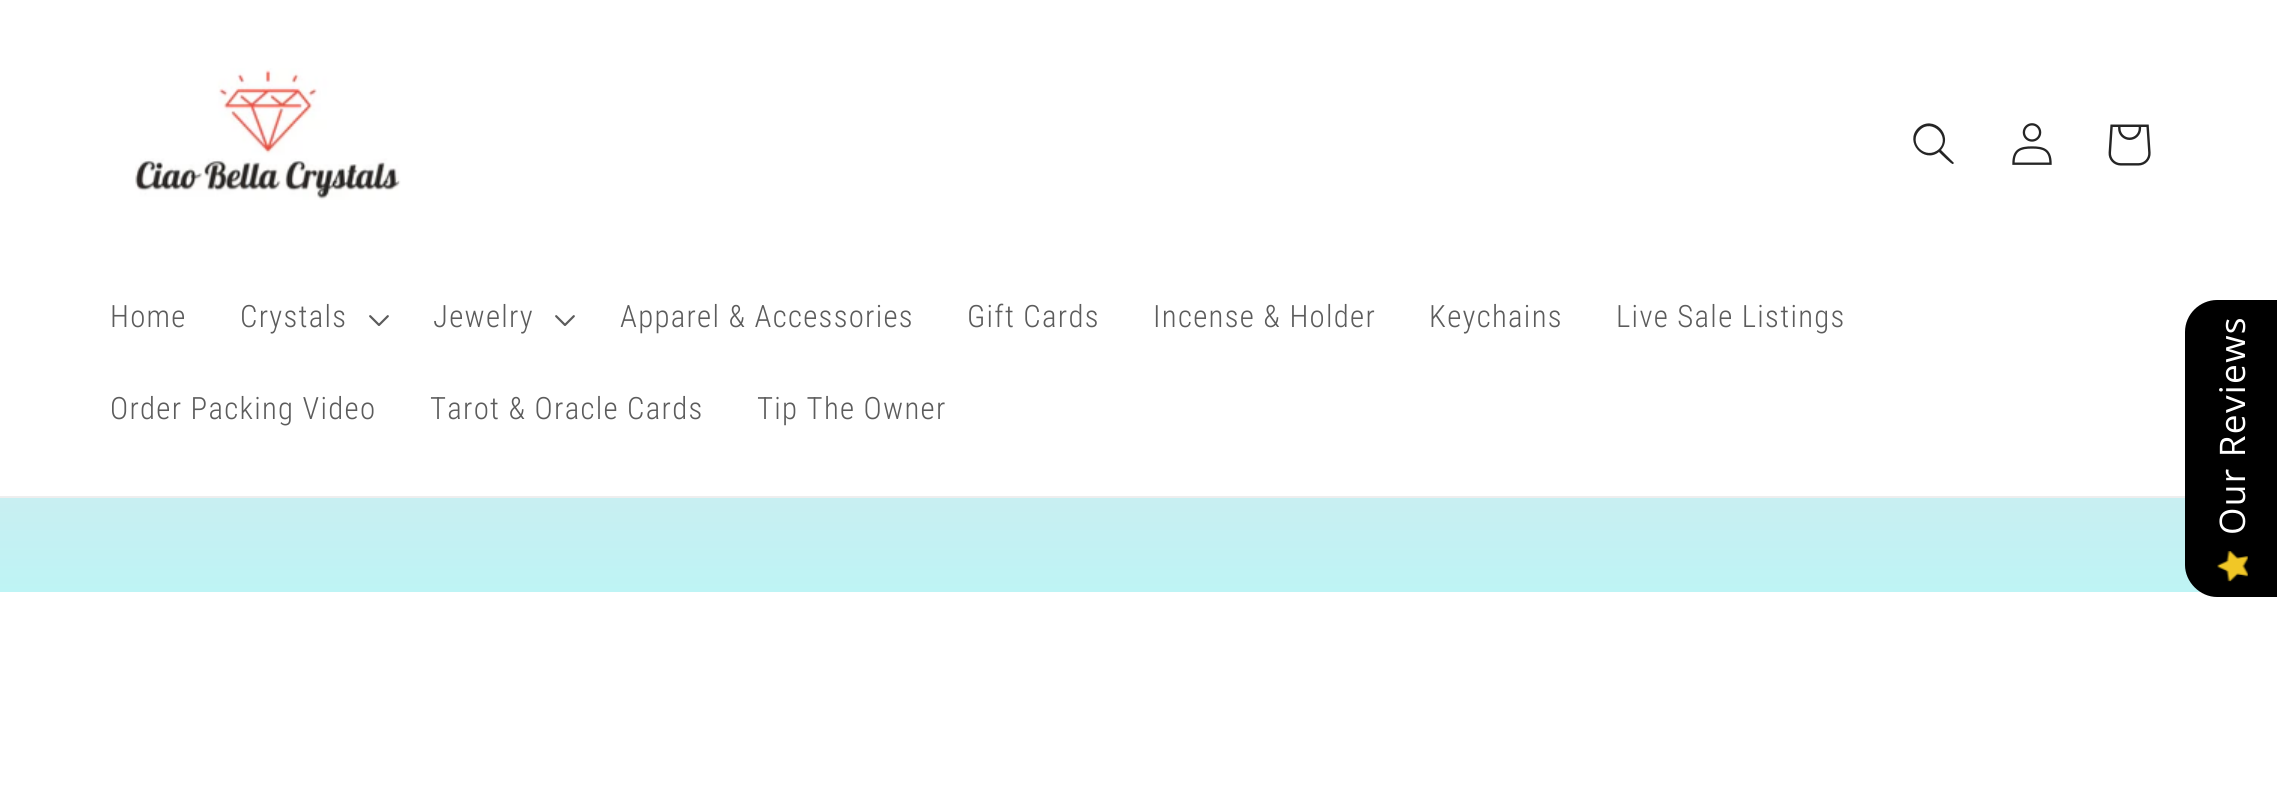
import math
import cairo

surface = cairo.ImageSurface(cairo.FORMAT_RGB24, 2277, 790)
cr = cairo.Context(surface)
options = cairo.FontOptions()
options.set_hint_metrics(cairo.HINT_METRICS_OFF)
options.set_hint_style(cairo.HINT_STYLE_NONE)
cr.set_font_options(options)
cr.set_miter_limit(4)


def rgb(code):
    cr.set_source_rgb(*(v / 255 for v in bytes.fromhex(code[-6:])))


def tracked(x, y, s, letter, word):
    cr.move_to(x, y)
    for ch in s:
        cr.show_text(ch)
        cr.rel_move_to(letter + word * (ch == ' '), 0)


def image(path, x, y, w, h):
    cr.save()
    cr.set_source_surface(cairo.ImageSurface.create_from_png(path), x, y)
    cr.rectangle(x, y, w, h)
    cr.fill()
    cr.restore()


rgb("#ffffff")
cr.paint()
gradient = cairo.LinearGradient(1139, 0, 1139, 790)
gradient.add_color_stop_rgba(0, 1, 0.827, 0.886, 1)
gradient.add_color_stop_rgba(1, 0.659, 1, 0.984, 1)
cr.set_source(gradient)
cr.rectangle(0, 498, 2201, 94)
cr.fill()
rgb("#eeeeee")
cr.rectangle(0, 496, 2185, 2)
cr.fill()
image("img/1.png", 135, 68, 266, 132)
rgb("#252525")
cr.set_fill_rule(cairo.FILL_RULE_EVEN_ODD)
cr.new_path()
cr.move_to(1939, 149)
cr.curve_to(1926, 161, 1907, 143, 1920, 130)
cr.curve_to(1932, 118, 1951, 137, 1939, 149)
cr.close_path()
cr.move_to(1939, 152)
cr.curve_to(1924, 164, 1904, 142, 1918, 128)
cr.curve_to(1933, 114, 1954, 135, 1941, 150)
cr.line_to(1954, 163)
cr.line_to(1953, 164)
cr.curve_to(1952, 165, 1941, 154, 1939, 152)
cr.close_path()
cr.fill()
image("img/2.png", 2012, 123, 40, 42)
image("img/3.png", 2108, 124, 43, 42)
image("img/4.png", 369, 315, 20, 11)
image("img/4.png", 555, 315, 20, 11)
rgb("#000000")
cr.set_fill_rule(cairo.FILL_RULE_WINDING)
cr.new_path()
cr.move_to(2185, 565)
cr.line_to(2185, 332)
cr.curve_to(2185, 314, 2200, 300, 2217, 300)
cr.line_to(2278, 300)
cr.line_to(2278, 597)
cr.line_to(2217, 597)
cr.curve_to(2200, 597, 2185, 582, 2185, 565)
cr.close_path()
cr.fill()
image("img/5.png", 2217, 551, 31, 31)
cr.select_font_face("Roboto Condensed Light")
cr.set_font_size(30.75)
rgb("#5c5c5c")
for x, y, s in [
    (110, 327, "Home"),
    (240, 327, "Crystals"),
    (433, 327, "Jewelry"),
    (620, 327, "Apparel & Accessories"),
    (967, 327, "Gift Cards"),
    (1153, 327, "Incense & Holder"),
    (1429, 327, "Keychains"),
    (1616, 327, "Live Sale Listings"),
    (110, 419, "Order Packing Video"),
    (430, 419, "Tarot & Oracle Cards"),
    (757, 419, "Tip The Owner"),
]:
    tracked(x, y, s, 1.3, 0)
cr.select_font_face("Open Sans")
cr.set_font_size(35.25)
rgb("#ffffff")
cr.save()
cr.translate(2245, 535)
cr.rotate(-90 * math.pi / 180)
tracked(0, 0, "Our Reviews", 1.3, 0)
cr.restore()
surface.write_to_png("page.png")
